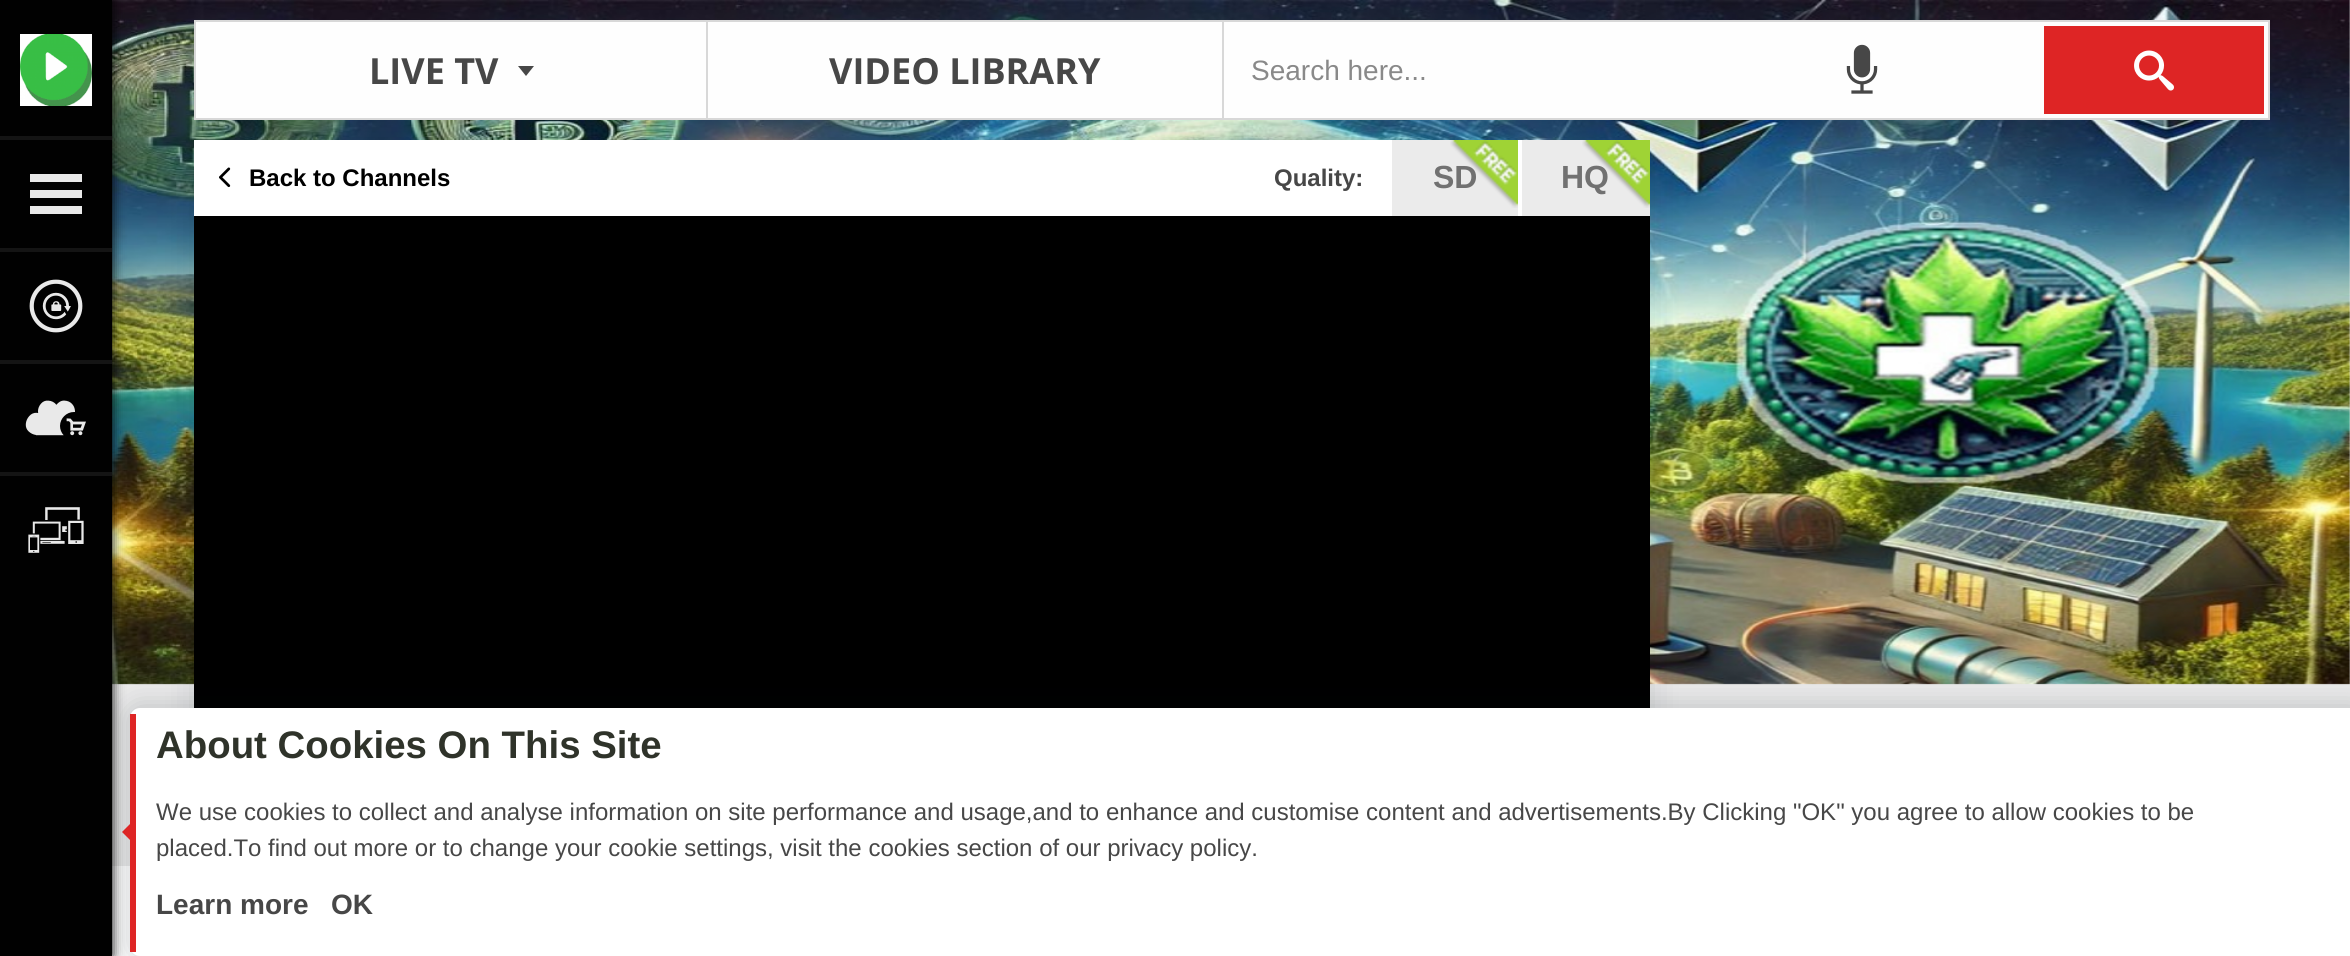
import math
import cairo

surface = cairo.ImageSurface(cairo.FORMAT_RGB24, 2350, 956)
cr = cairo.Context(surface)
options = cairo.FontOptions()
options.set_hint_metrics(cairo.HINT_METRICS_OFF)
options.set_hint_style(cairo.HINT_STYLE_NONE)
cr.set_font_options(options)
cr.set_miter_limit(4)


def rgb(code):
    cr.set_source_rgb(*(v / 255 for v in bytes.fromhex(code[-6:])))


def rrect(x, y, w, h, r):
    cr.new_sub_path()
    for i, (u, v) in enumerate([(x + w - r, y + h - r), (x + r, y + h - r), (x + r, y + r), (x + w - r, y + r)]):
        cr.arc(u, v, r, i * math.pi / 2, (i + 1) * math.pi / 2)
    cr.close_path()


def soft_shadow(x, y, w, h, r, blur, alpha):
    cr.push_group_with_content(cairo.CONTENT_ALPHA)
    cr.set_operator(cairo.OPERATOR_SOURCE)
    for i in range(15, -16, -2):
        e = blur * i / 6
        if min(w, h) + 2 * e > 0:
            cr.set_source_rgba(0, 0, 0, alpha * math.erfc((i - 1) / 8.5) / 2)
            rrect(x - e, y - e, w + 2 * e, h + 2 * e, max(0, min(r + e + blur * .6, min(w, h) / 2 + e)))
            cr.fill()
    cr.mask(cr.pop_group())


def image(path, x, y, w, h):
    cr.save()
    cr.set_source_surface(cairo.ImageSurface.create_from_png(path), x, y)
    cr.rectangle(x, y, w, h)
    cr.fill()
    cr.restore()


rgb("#eaeaea")
cr.paint()
image("img/1.png", 112, 0, 2238, 685)
rgb("#ffffff")
cr.rectangle(112, 866, 28, 90)
cr.fill()
rgb("#000d1a")
soft_shadow(198, 152, 1448, 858, 0, 18, 0.15)
rgb("#000000")
cr.rectangle(194, 216, 1456, 492)
cr.fill()
rgb("#000d1a")
soft_shadow(124, 702, 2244, 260, 16, 12, 0.15)
rgb("#ffffff")
rrect(130, 708, 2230, 248, 10)
cr.fill()
rgb("#de2525")
cr.rectangle(130, 714, 6, 238)
cr.fill()
cr.new_path()
cr.move_to(136, 818)
cr.line_to(136, 846)
cr.line_to(122, 832)
cr.close_path()
cr.fill()
rgb("#010101")
soft_shadow(0, 0, 112, 956, 0, 6, 1)
rgb("#010101")
cr.rectangle(0, 0, 112, 956)
cr.fill()
image("img/2.png", 20, 34, 72, 72)
rgb("#141414")
cr.rectangle(0, 136, 112, 4)
cr.fill()
rgb("#e9e9e9")
cr.new_path()
cr.move_to(82, 182)
cr.line_to(30, 182)
cr.line_to(30, 174)
cr.line_to(82, 174)
cr.close_path()
cr.move_to(82, 190)
cr.line_to(30, 190)
cr.line_to(30, 198)
cr.line_to(82, 198)
cr.close_path()
cr.move_to(82, 206)
cr.line_to(30, 206)
cr.line_to(30, 214)
cr.line_to(82, 214)
cr.close_path()
cr.fill()
rgb("#141414")
cr.rectangle(0, 248, 112, 4)
cr.fill()
image("img/3.png", 29, 279, 54, 54)
cr.rectangle(0, 360, 112, 4)
cr.fill()
image("img/4.png", 25, 400, 61, 36)
cr.rectangle(0, 472, 112, 4)
cr.fill()
image("img/5.png", 28, 507, 56, 46)
rgb("#fefefe")
cr.rectangle(195, 21, 2074, 98)
cr.fill_preserve()
rgb("#d8d8d8")
cr.stroke()
rgb("#474747")
cr.new_path()
cr.move_to(518, 66)
cr.line_to(534, 66)
cr.line_to(526, 76)
cr.close_path()
cr.fill()
rgb("#d8d8d8")
cr.rectangle(706, 22, 2, 96)
cr.fill()
cr.rectangle(1222, 22, 2, 96)
cr.fill()
image("img/6.png", 1846, 44, 32, 50)
rgb("#de2525")
cr.rectangle(2044, 26, 220, 88)
cr.fill()
image("img/7.png", 2134, 50, 40, 41)
rgb("#ffffff")
cr.rectangle(194, 140, 1328, 76)
cr.fill()
image("img/8.png", 219, 167, 12, 21)
rgb("#ebebeb")
cr.rectangle(1392, 140, 126, 76)
cr.fill()
cr.rectangle(1522, 140, 128, 76)
cr.fill()
cr.select_font_face("Open Sans", cairo.FONT_SLANT_NORMAL, cairo.FONT_WEIGHT_BOLD)
cr.set_font_size(36)
rgb("#474747")
cr.move_to(369, 84)
cr.show_text("LIVE TV")
cr.move_to(829, 84)
cr.show_text("VIDEO LIBRARY")
cr.select_font_face("Liberation Sans")
cr.set_font_size(28)
rgb("#898989")
cr.move_to(1251, 80)
cr.show_text("Search here...")
cr.select_font_face("Liberation Sans", cairo.FONT_SLANT_NORMAL, cairo.FONT_WEIGHT_BOLD)
cr.set_font_size(24)
rgb("#000000")
cr.move_to(249, 186)
cr.show_text("Back to Channels")
rgb("#474747")
cr.move_to(1274, 186)
cr.show_text("Quality:")
cr.set_font_size(32)
rgb("#717171")
cr.move_to(1433, 188)
cr.show_text("SD")
image("img/9.png", 1450, 140, 68, 68)
cr.move_to(1561, 188)
cr.show_text("HQ")
image("img/10.png", 1582, 140, 68, 68)
cr.set_font_size(38.4)
rgb("#2f332a")
cr.move_to(156, 758)
cr.show_text("About Cookies On This Site")
cr.select_font_face("Liberation Sans")
cr.set_font_size(24)
rgb("#474747")
cr.move_to(156, 820)
cr.show_text("We use cookies to collect and analyse information on site performance and usage,and to enhance and customise content and advertisements.By Clicking \"OK\" you agree to allow cookies to be")
cr.move_to(156, 856)
cr.show_text("placed.To find out more or to change your cookie settings, visit the cookies section of our privacy policy.")
cr.select_font_face("Liberation Sans", cairo.FONT_SLANT_NORMAL, cairo.FONT_WEIGHT_BOLD)
cr.set_font_size(28)
cr.move_to(156, 914)
cr.show_text("Learn more")
cr.move_to(331, 914)
cr.show_text("OK")
surface.write_to_png("page.png")
